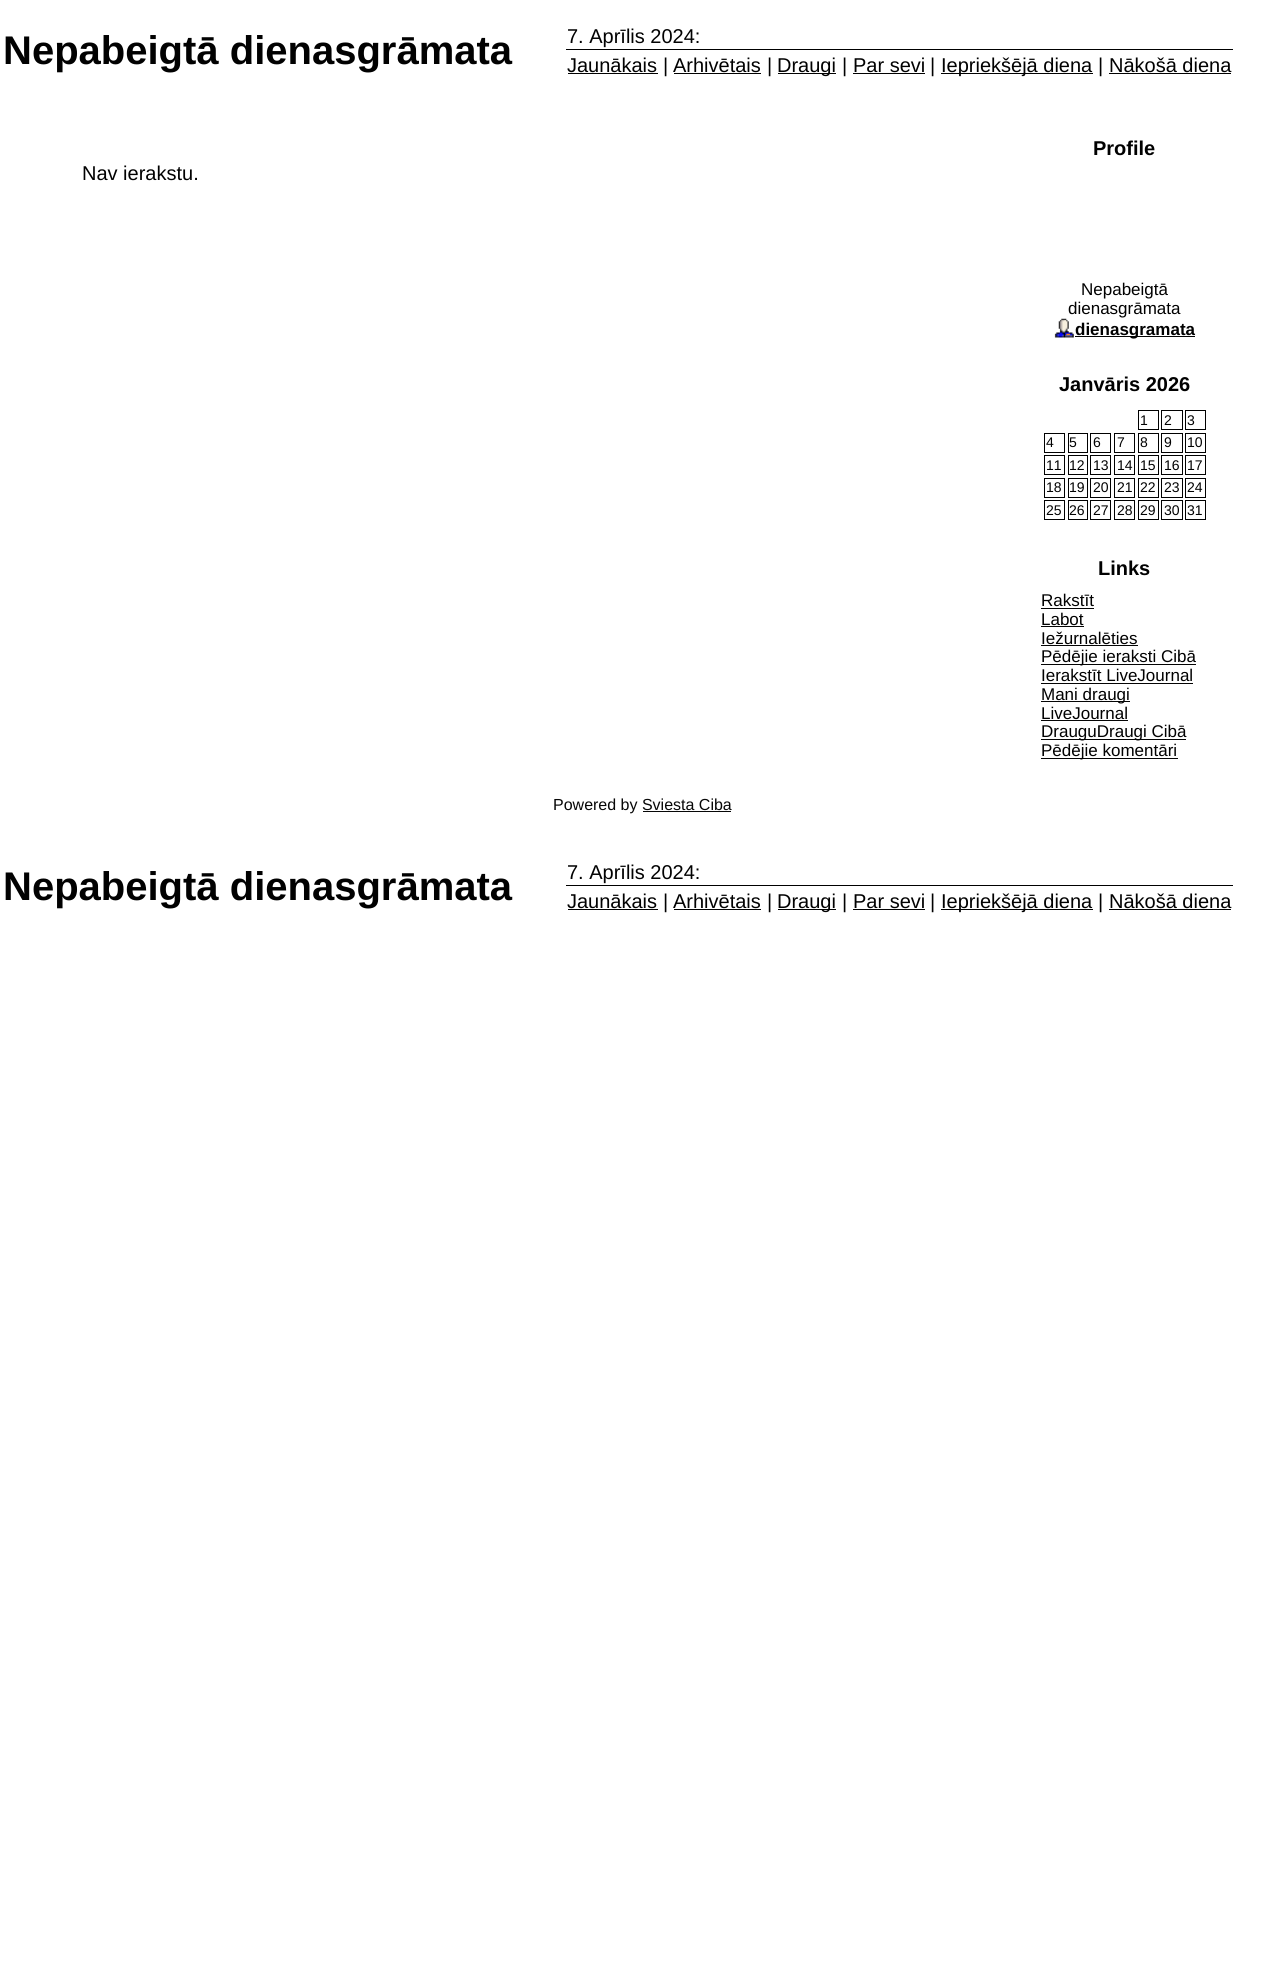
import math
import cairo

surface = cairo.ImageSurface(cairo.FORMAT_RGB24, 1285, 1980)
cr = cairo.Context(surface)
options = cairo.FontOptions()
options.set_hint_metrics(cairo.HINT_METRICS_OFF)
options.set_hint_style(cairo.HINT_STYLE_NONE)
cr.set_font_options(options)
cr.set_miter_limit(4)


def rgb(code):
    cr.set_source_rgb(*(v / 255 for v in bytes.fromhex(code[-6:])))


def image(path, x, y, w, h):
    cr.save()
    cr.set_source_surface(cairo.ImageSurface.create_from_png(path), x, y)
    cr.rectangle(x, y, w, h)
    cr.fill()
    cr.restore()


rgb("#ffffff")
cr.paint()
for x, y, w, h, color in [
    (566, 49, 667, 1, "#000000"),
    (568, 73, 90, 1, "#010101"),
    (674, 73, 87, 1, "#010101"),
    (778, 73, 58, 1, "#010101"),
    (853, 73, 72, 1, "#010101"),
    (941, 73, 152, 1, "#010101"),
    (1109, 73, 122, 1, "#010101"),
]:
    rgb(color)
    cr.rectangle(x, y, w, h)
    cr.fill()
image("img/1.png", 1054, 318, 20, 20)
rgb("#040404")
cr.rectangle(1075, 336, 120, 1)
cr.fill()
cr.rectangle(1138.5, 410.5, 20, 19)
rgb("#000000")
cr.set_line_width(1)
cr.stroke()
cr.rectangle(1161.5, 410.5, 21, 19)
cr.stroke()
cr.rectangle(1185.5, 410.5, 20, 19)
cr.stroke()
cr.rectangle(1044.5, 433.5, 20, 19)
cr.stroke()
cr.rectangle(1068.5, 433.5, 19, 19)
cr.stroke()
cr.rectangle(1090.5, 433.5, 20, 19)
cr.stroke()
cr.rectangle(1114.5, 433.5, 20, 19)
cr.stroke()
cr.rectangle(1138.5, 433.5, 20, 19)
cr.stroke()
cr.rectangle(1161.5, 433.5, 21, 19)
cr.stroke()
cr.rectangle(1185.5, 433.5, 20, 19)
cr.stroke()
cr.rectangle(1044.5, 455.5, 20, 19)
cr.stroke()
cr.rectangle(1068.5, 455.5, 19, 19)
cr.stroke()
cr.rectangle(1090.5, 455.5, 20, 19)
cr.stroke()
cr.rectangle(1114.5, 455.5, 20, 19)
cr.stroke()
cr.rectangle(1138.5, 455.5, 20, 19)
cr.stroke()
cr.rectangle(1161.5, 455.5, 21, 19)
cr.stroke()
cr.rectangle(1185.5, 455.5, 20, 19)
cr.stroke()
cr.rectangle(1044.5, 478.5, 20, 19)
cr.stroke()
cr.rectangle(1068.5, 478.5, 19, 19)
cr.stroke()
cr.rectangle(1090.5, 478.5, 20, 19)
cr.stroke()
cr.rectangle(1114.5, 478.5, 20, 19)
cr.stroke()
cr.rectangle(1138.5, 478.5, 20, 19)
cr.stroke()
cr.rectangle(1161.5, 478.5, 21, 19)
cr.stroke()
cr.rectangle(1185.5, 478.5, 20, 19)
cr.stroke()
cr.rectangle(1044.5, 500.5, 20, 19)
cr.stroke()
cr.rectangle(1068.5, 500.5, 19, 19)
cr.stroke()
cr.rectangle(1090.5, 500.5, 20, 19)
cr.stroke()
cr.rectangle(1114.5, 500.5, 20, 19)
cr.stroke()
cr.rectangle(1138.5, 500.5, 20, 19)
cr.stroke()
cr.rectangle(1161.5, 500.5, 21, 19)
cr.stroke()
cr.rectangle(1185.5, 500.5, 20, 19)
cr.stroke()
for x, y, w, h, color in [
    (1041, 608, 53, 1, "#040404"),
    (1041, 626, 43, 1, "#040404"),
    (1041, 645, 97, 1, "#040404"),
    (1041, 664, 155, 1, "#040404"),
    (1041, 683, 152, 1, "#040404"),
    (1041, 701, 89, 1, "#040404"),
    (1041, 720, 87, 1, "#040404"),
    (1041, 739, 145, 1, "#040404"),
    (1041, 758, 137, 1, "#040404"),
    (643, 811, 88, 1, "#070707"),
    (566, 885, 667, 1, "#000000"),
    (568, 909, 90, 1, "#010101"),
    (674, 909, 87, 1, "#010101"),
    (778, 909, 58, 1, "#010101"),
    (853, 909, 72, 1, "#010101"),
    (941, 909, 152, 1, "#010101"),
    (1109, 909, 122, 1, "#010101"),
]:
    rgb(color)
    cr.rectangle(x, y, w, h)
    cr.fill()
cr.select_font_face("Liberation Sans", cairo.FONT_SLANT_NORMAL, cairo.FONT_WEIGHT_BOLD)
cr.set_font_size(40)
cr.move_to(3, 64)
cr.show_text("Nepabeigtā dienasgrāmata")
cr.select_font_face("Liberation Sans")
cr.set_font_size(20)
for x, y, s in [
    (567, 43, "7. Aprīlis 2024:"),
    (567, 72, "Jaunākais"),
    (663, 72, "|"),
    (673, 72, "Arhivētais"),
    (767, 72, "|"),
    (777, 72, "Draugi"),
    (842, 72, "|"),
    (853, 72, "Par sevi"),
    (930, 72, "|"),
    (941, 72, "Iepriekšējā diena"),
    (1098, 72, "|"),
    (1109, 72, "Nākošā diena"),
    (82, 180, "Nav ierakstu."),
]:
    cr.move_to(x, y)
    cr.show_text(s)
cr.select_font_face("Liberation Sans", cairo.FONT_SLANT_NORMAL, cairo.FONT_WEIGHT_BOLD)
cr.move_to(1093, 155)
cr.show_text("Profile")
cr.select_font_face("Liberation Sans")
cr.set_font_size(17)
cr.move_to(1081, 295)
cr.show_text("Nepabeigtā")
cr.move_to(1068, 314)
cr.show_text("dienasgrāmata")
cr.select_font_face("Liberation Sans", cairo.FONT_SLANT_NORMAL, cairo.FONT_WEIGHT_BOLD)
cr.move_to(1075, 335)
cr.show_text("dienasgramata")
cr.set_font_size(20)
cr.move_to(1059, 391)
cr.show_text("Janvāris 2026")
cr.select_font_face("Liberation Sans")
cr.set_font_size(14)
for x, y, s in [
    (1140, 425, "1"),
    (1164, 425, "2"),
    (1187, 425, "3"),
    (1046, 447, "4"),
    (1069, 447, "5"),
    (1093, 447, "6"),
    (1117, 447, "7"),
    (1140, 447, "8"),
    (1164, 447, "9"),
    (1187, 447, "10"),
    (1046, 470, "11"),
    (1069, 470, "12"),
    (1093, 470, "13"),
    (1117, 470, "14"),
    (1140, 470, "15"),
    (1164, 470, "16"),
    (1187, 470, "17"),
    (1046, 492, "18"),
    (1069, 492, "19"),
    (1093, 492, "20"),
    (1117, 492, "21"),
    (1140, 492, "22"),
    (1164, 492, "23"),
    (1187, 492, "24"),
    (1046, 515, "25"),
    (1069, 515, "26"),
    (1093, 515, "27"),
    (1117, 515, "28"),
    (1140, 515, "29"),
    (1164, 515, "30"),
    (1187, 515, "31"),
]:
    cr.move_to(x, y)
    cr.show_text(s)
cr.select_font_face("Liberation Sans", cairo.FONT_SLANT_NORMAL, cairo.FONT_WEIGHT_BOLD)
cr.set_font_size(20)
cr.move_to(1098, 575)
cr.show_text("Links")
cr.select_font_face("Liberation Sans")
cr.set_font_size(17)
for x, y, s in [
    (1041, 606, "Rakstīt"),
    (1041, 625, "Labot"),
    (1041, 644, "Iežurnalēties"),
    (1041, 662, "Pēdējie ieraksti Cibā"),
    (1041, 681, "Ierakstīt LiveJournal"),
    (1041, 700, "Mani draugi"),
    (1041, 719, "LiveJournal"),
    (1041, 737, "DrauguDraugi Cibā"),
    (1041, 756, "Pēdējie komentāri"),
]:
    cr.move_to(x, y)
    cr.show_text(s)
cr.set_font_size(16)
rgb("#070707")
cr.move_to(553, 810)
cr.show_text("Powered by Sviesta Ciba")
cr.select_font_face("Liberation Sans", cairo.FONT_SLANT_NORMAL, cairo.FONT_WEIGHT_BOLD)
cr.set_font_size(40)
rgb("#010101")
cr.move_to(3, 900)
cr.show_text("Nepabeigtā dienasgrāmata")
cr.select_font_face("Liberation Sans")
cr.set_font_size(20)
for x, y, s in [
    (567, 879, "7. Aprīlis 2024:"),
    (567, 908, "Jaunākais"),
    (663, 908, "|"),
    (673, 908, "Arhivētais"),
    (767, 908, "|"),
    (777, 908, "Draugi"),
    (842, 908, "|"),
    (853, 908, "Par sevi"),
    (930, 908, "|"),
    (941, 908, "Iepriekšējā diena"),
    (1098, 908, "|"),
    (1109, 908, "Nākošā diena"),
]:
    cr.move_to(x, y)
    cr.show_text(s)
surface.write_to_png("page.png")
